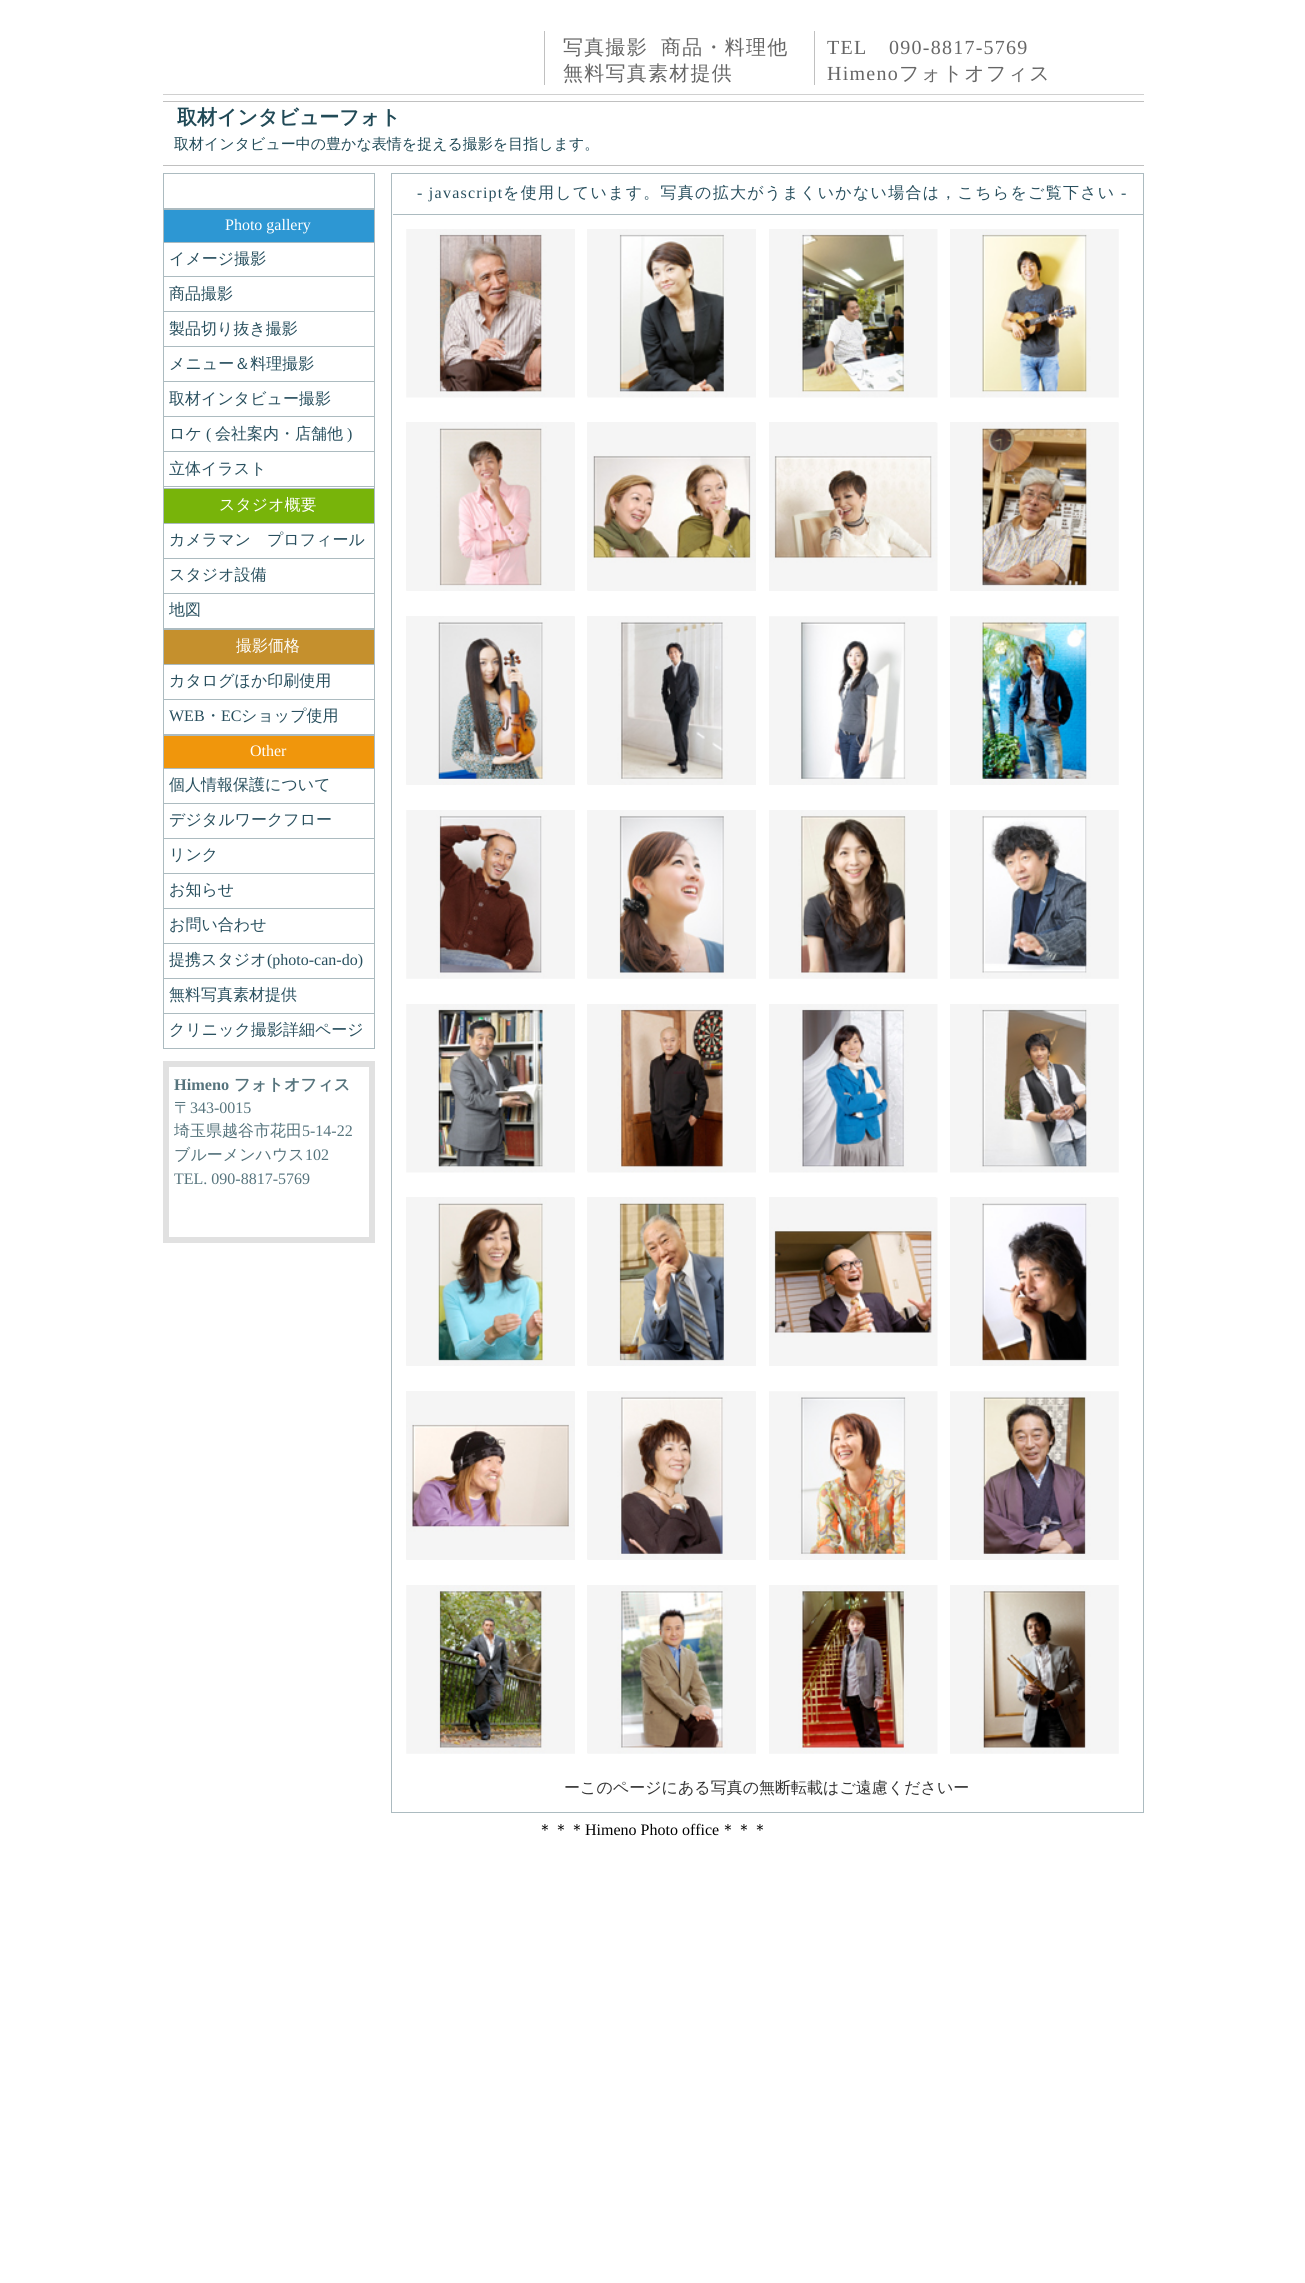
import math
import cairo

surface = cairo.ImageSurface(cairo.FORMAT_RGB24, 1305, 2283)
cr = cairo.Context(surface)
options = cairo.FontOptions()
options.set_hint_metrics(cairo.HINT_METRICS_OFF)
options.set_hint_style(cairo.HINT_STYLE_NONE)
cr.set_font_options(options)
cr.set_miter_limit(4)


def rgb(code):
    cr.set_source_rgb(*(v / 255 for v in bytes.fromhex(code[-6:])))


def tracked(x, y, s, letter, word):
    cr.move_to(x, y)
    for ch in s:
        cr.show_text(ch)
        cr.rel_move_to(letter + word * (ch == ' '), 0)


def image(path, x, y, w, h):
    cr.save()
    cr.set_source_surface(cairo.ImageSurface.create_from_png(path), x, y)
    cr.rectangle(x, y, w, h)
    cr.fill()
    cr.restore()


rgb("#ffffff")
cr.paint()
for x, y, w, h, color in [
    (163, 94, 981, 1, "#d0d0d0"),
    (544, 31, 1, 54, "#c0c0c0"),
    (814, 31, 1, 54, "#c0c0c0"),
    (163, 101, 981, 1, "#c0c0c0"),
    (163, 165, 981, 1, "#c0c0c0"),
]:
    rgb(color)
    cr.rectangle(x, y, w, h)
    cr.fill()
cr.rectangle(163.5, 173.5, 211, 35)
rgb("#acbbc0")
cr.set_line_width(1)
cr.stroke()
rgb("#2d97d3")
cr.rectangle(163.5, 209.5, 211, 33)
cr.fill_preserve()
rgb("#acbbc0")
cr.stroke()
for x, y, w, h, color in [
    (374, 243, 1, 245, "#acbbc0"),
    (163, 276, 212, 1, "#acbbc0"),
    (163, 243, 1, 35, "#acbbc0"),
    (163, 311, 212, 1, "#acbbc0"),
    (163, 278, 1, 35, "#acbbc0"),
    (163, 346, 212, 1, "#acbbc0"),
    (163, 313, 1, 35, "#acbbc0"),
    (163, 381, 212, 1, "#acbbc0"),
    (163, 348, 1, 35, "#acbbc0"),
    (163, 416, 212, 1, "#acbbc0"),
    (163, 383, 1, 35, "#acbbc0"),
    (163, 451, 212, 1, "#acbbc0"),
    (163, 418, 1, 35, "#acbbc0"),
    (163, 486, 212, 1, "#acbbc0"),
    (163, 453, 1, 35, "#acbbc0"),
]:
    rgb(color)
    cr.rectangle(x, y, w, h)
    cr.fill()
rgb("#78b40a")
cr.rectangle(163.5, 488.5, 211, 35)
cr.fill_preserve()
rgb("#acbbc0")
cr.stroke()
for x, y, w, h, color in [
    (374, 524, 1, 105, "#acbbc0"),
    (163, 558, 212, 1, "#acbbc0"),
    (163, 524, 1, 35, "#acbbc0"),
    (163, 593, 212, 1, "#acbbc0"),
    (163, 559, 1, 35, "#acbbc0"),
    (163, 628, 212, 1, "#acbbc0"),
    (163, 594, 1, 35, "#acbbc0"),
]:
    rgb(color)
    cr.rectangle(x, y, w, h)
    cr.fill()
rgb("#c5902d")
cr.rectangle(163.5, 629.5, 211, 35)
cr.fill_preserve()
rgb("#acbbc0")
cr.stroke()
for x, y, w, h, color in [
    (374, 665, 1, 70, "#acbbc0"),
    (163, 699, 212, 1, "#acbbc0"),
    (163, 665, 1, 35, "#acbbc0"),
    (163, 734, 212, 1, "#acbbc0"),
    (163, 700, 1, 35, "#acbbc0"),
]:
    rgb(color)
    cr.rectangle(x, y, w, h)
    cr.fill()
rgb("#f0960c")
cr.rectangle(163.5, 735.5, 211, 33)
cr.fill_preserve()
rgb("#acbbc0")
cr.stroke()
for x, y, w, h, color in [
    (374, 769, 1, 280, "#acbbc0"),
    (163, 803, 212, 1, "#acbbc0"),
    (163, 769, 1, 35, "#acbbc0"),
    (163, 838, 212, 1, "#acbbc0"),
    (163, 804, 1, 35, "#acbbc0"),
    (163, 873, 212, 1, "#acbbc0"),
    (163, 839, 1, 35, "#acbbc0"),
    (163, 908, 212, 1, "#acbbc0"),
    (163, 874, 1, 35, "#acbbc0"),
    (163, 943, 212, 1, "#acbbc0"),
    (163, 909, 1, 35, "#acbbc0"),
    (163, 978, 212, 1, "#acbbc0"),
    (163, 944, 1, 35, "#acbbc0"),
    (163, 1013, 212, 1, "#acbbc0"),
    (163, 979, 1, 35, "#acbbc0"),
    (163, 1048, 212, 1, "#acbbc0"),
    (163, 1014, 1, 35, "#acbbc0"),
]:
    rgb(color)
    cr.rectangle(x, y, w, h)
    cr.fill()
cr.rectangle(166, 1064, 206, 176)
rgb("#e1e1e1")
cr.set_line_width(6)
cr.stroke()
cr.rectangle(391.5, 173.5, 752, 1639)
rgb("#acbbc0")
cr.set_line_width(1)
cr.stroke()
cr.rectangle(393, 214, 750, 1)
cr.fill()
image("img/1.png", 406, 229, 169, 169)
rgb("#f5f5f5")
cr.rectangle(587, 229, 1, 167)
cr.fill()
image("img/2.png", 587, 229, 169, 169)
image("img/3.png", 769, 229, 169, 169)
image("img/4.png", 950, 229, 169, 169)
cr.rectangle(406, 422, 168, 168)
cr.fill()
image("img/5.png", 406, 422, 169, 169)
cr.rectangle(587, 422, 168, 168)
cr.fill()
image("img/6.png", 587, 422, 169, 169)
cr.rectangle(769, 422, 167, 1)
cr.fill()
image("img/7.png", 769, 422, 169, 169)
cr.rectangle(950, 422, 168, 1)
cr.fill()
image("img/8.png", 950, 422, 169, 169)
cr.rectangle(406, 616, 168, 168)
cr.fill()
image("img/9.png", 406, 616, 169, 169)
cr.rectangle(587, 616, 168, 168)
cr.fill()
image("img/10.png", 587, 616, 169, 169)
image("img/11.png", 769, 616, 169, 169)
image("img/12.png", 950, 616, 169, 169)
image("img/13.png", 406, 810, 169, 169)
cr.rectangle(587, 810, 1, 168)
cr.fill()
image("img/14.png", 587, 810, 169, 169)
image("img/15.png", 769, 810, 169, 169)
image("img/16.png", 950, 810, 169, 169)
image("img/17.png", 406, 1004, 169, 169)
cr.rectangle(587, 1004, 1, 167)
cr.fill()
image("img/18.png", 587, 1004, 169, 169)
image("img/19.png", 769, 1004, 169, 169)
image("img/20.png", 950, 1004, 169, 169)
cr.rectangle(406, 1197, 168, 168)
cr.fill()
image("img/21.png", 406, 1197, 169, 169)
cr.rectangle(587, 1197, 168, 168)
cr.fill()
image("img/22.png", 587, 1197, 169, 169)
cr.rectangle(769, 1197, 167, 1)
cr.fill()
image("img/23.png", 769, 1197, 169, 169)
cr.rectangle(950, 1197, 168, 1)
cr.fill()
image("img/24.png", 950, 1197, 169, 169)
cr.rectangle(406, 1391, 168, 168)
cr.fill()
image("img/25.png", 406, 1391, 169, 169)
cr.rectangle(587, 1391, 168, 168)
cr.fill()
image("img/26.png", 587, 1391, 169, 169)
image("img/27.png", 769, 1391, 169, 169)
image("img/28.png", 950, 1391, 169, 169)
image("img/29.png", 406, 1585, 169, 169)
cr.rectangle(587, 1585, 1, 168)
cr.fill()
image("img/30.png", 587, 1585, 169, 169)
image("img/31.png", 769, 1585, 169, 169)
image("img/32.png", 950, 1585, 169, 169)
cr.select_font_face("WenQuanYi Zen Hei Medium")
cr.set_font_size(20)
rgb("#666666")
for x, y, s in [
    (563, 54, "写真撮影"),
    (661, 54, "商品・料理他"),
    (563, 80, "無料写真素材提供"),
]:
    tracked(x, y, s, 1.25, 0)
cr.select_font_face("Liberation Serif")
for x, y, s in [
    (827, 54, "TEL"),
    (889, 54, "090-8817-5769"),
    (827, 80, "Himeno"),
]:
    tracked(x, y, s, 1.25, 0)
cr.select_font_face("WenQuanYi Zen Hei Medium")
tracked(899, 80, "フォトオフィス", 1.25, 0)
cr.select_font_face("WenQuanYi Zen Hei", cairo.FONT_SLANT_NORMAL, cairo.FONT_WEIGHT_BOLD)
rgb("#214a57")
cr.move_to(177, 124)
cr.show_text("取材インタビューフォト")
cr.select_font_face("WenQuanYi Zen Hei Medium")
cr.set_font_size(15)
cr.move_to(174, 149)
cr.show_text("取材インタビュー中の豊かな表情を捉える撮影を目指します。")
cr.select_font_face("Liberation Serif")
cr.set_font_size(16)
rgb("#ffffff")
cr.move_to(225, 230)
cr.show_text("Photo gallery")
cr.select_font_face("WenQuanYi Zen Hei Medium")
rgb("#284f5e")
for x, y, s in [
    (169, 264, "イメージ撮影"),
    (169, 299, "商品撮影"),
    (169, 334, "製品切り抜き撮影"),
    (169, 369, "メニュー＆料理撮影"),
    (169, 404, "取材インタビュー撮影"),
    (169, 439, "ロケ"),
]:
    cr.move_to(x, y)
    cr.show_text(s)
cr.select_font_face("Liberation Serif")
cr.move_to(206, 439)
cr.show_text("(")
cr.select_font_face("WenQuanYi Zen Hei Medium")
cr.move_to(215, 439)
cr.show_text("会社案内・店舗他")
cr.select_font_face("Liberation Serif")
cr.move_to(347, 439)
cr.show_text(")")
cr.select_font_face("WenQuanYi Zen Hei Medium")
cr.move_to(169, 474)
cr.show_text("立体イラスト")
rgb("#ffffff")
cr.move_to(219, 510)
cr.show_text("スタジオ概要")
rgb("#284f5e")
for x, y, s in [
    (169, 545, "カメラマン　プロフィール"),
    (169, 580, "スタジオ設備"),
    (169, 615, "地図"),
]:
    cr.move_to(x, y)
    cr.show_text(s)
rgb("#ffffff")
cr.move_to(236, 651)
cr.show_text("撮影価格")
rgb("#284f5e")
cr.move_to(169, 686)
cr.show_text("カタログほか印刷使用")
cr.select_font_face("Liberation Serif")
cr.move_to(169, 721)
cr.show_text("WEB")
cr.select_font_face("WenQuanYi Zen Hei Medium")
cr.move_to(205, 721)
cr.show_text("・")
cr.select_font_face("Liberation Serif")
cr.move_to(221, 721)
cr.show_text("EC")
cr.select_font_face("WenQuanYi Zen Hei Medium")
cr.move_to(241, 721)
cr.show_text("ショップ使用")
cr.select_font_face("Liberation Serif")
rgb("#ffffff")
cr.move_to(250, 756)
cr.show_text("Other")
cr.select_font_face("WenQuanYi Zen Hei Medium")
rgb("#284f5e")
for x, y, s in [
    (169, 790, "個人情報保護について"),
    (169, 825, "デジタルワークフロー"),
    (169, 860, "リンク"),
    (169, 895, "お知らせ"),
    (169, 930, "お問い合わせ"),
    (169, 965, "提携スタジオ"),
]:
    cr.move_to(x, y)
    cr.show_text(s)
cr.select_font_face("Liberation Serif")
cr.move_to(267, 965)
cr.show_text("(photo-can-do)")
cr.select_font_face("WenQuanYi Zen Hei Medium")
cr.move_to(169, 1000)
cr.show_text("無料写真素材提供")
cr.move_to(169, 1035)
cr.show_text("クリニック撮影詳細ページ")
cr.select_font_face("Liberation Serif", cairo.FONT_SLANT_NORMAL, cairo.FONT_WEIGHT_BOLD)
cr.set_font_size(16.25)
rgb("#56747d")
cr.move_to(174, 1090)
cr.show_text("Himeno")
cr.select_font_face("WenQuanYi Zen Hei", cairo.FONT_SLANT_NORMAL, cairo.FONT_WEIGHT_BOLD)
cr.move_to(234, 1090)
cr.show_text("フォトオフィス")
cr.select_font_face("WenQuanYi Zen Hei Medium")
cr.set_font_size(16)
cr.move_to(174, 1113)
cr.show_text("〒")
cr.select_font_face("Liberation Serif")
cr.move_to(190, 1113)
cr.show_text("343-0015")
cr.select_font_face("WenQuanYi Zen Hei Medium")
cr.move_to(174, 1136)
cr.show_text("埼玉県越谷市花田")
cr.select_font_face("Liberation Serif")
cr.move_to(302, 1136)
cr.show_text("5-14-22")
cr.select_font_face("WenQuanYi Zen Hei Medium")
cr.move_to(174, 1160)
cr.show_text("ブルーメンハウス")
cr.select_font_face("Liberation Serif")
cr.move_to(305, 1160)
cr.show_text("102")
cr.move_to(174, 1184)
cr.show_text("TEL. 090-8817-5769")
rgb("#284f5e")
tracked(417, 198, "- javascript", 1.25, 0)
cr.select_font_face("WenQuanYi Zen Hei Medium")
tracked(503, 198, "を使用しています。写真の拡大がうまくいかない場合は，こちらをご覧下さい", 1.25, 0)
cr.select_font_face("Liberation Serif")
tracked(1121, 198, "-", 1.25, 0)
cr.select_font_face("WenQuanYi Zen Hei Medium")
rgb("#333333")
cr.move_to(564, 1793)
cr.show_text("ーこのページにある写真の無断転載はご遠慮くださいー")
rgb("#000000")
cr.move_to(537, 1835)
cr.show_text("＊＊＊")
cr.select_font_face("Liberation Serif")
cr.move_to(585, 1835)
cr.show_text("Himeno Photo office")
cr.select_font_face("WenQuanYi Zen Hei Medium")
cr.move_to(720, 1835)
cr.show_text("＊＊＊")
surface.write_to_png("page.png")
